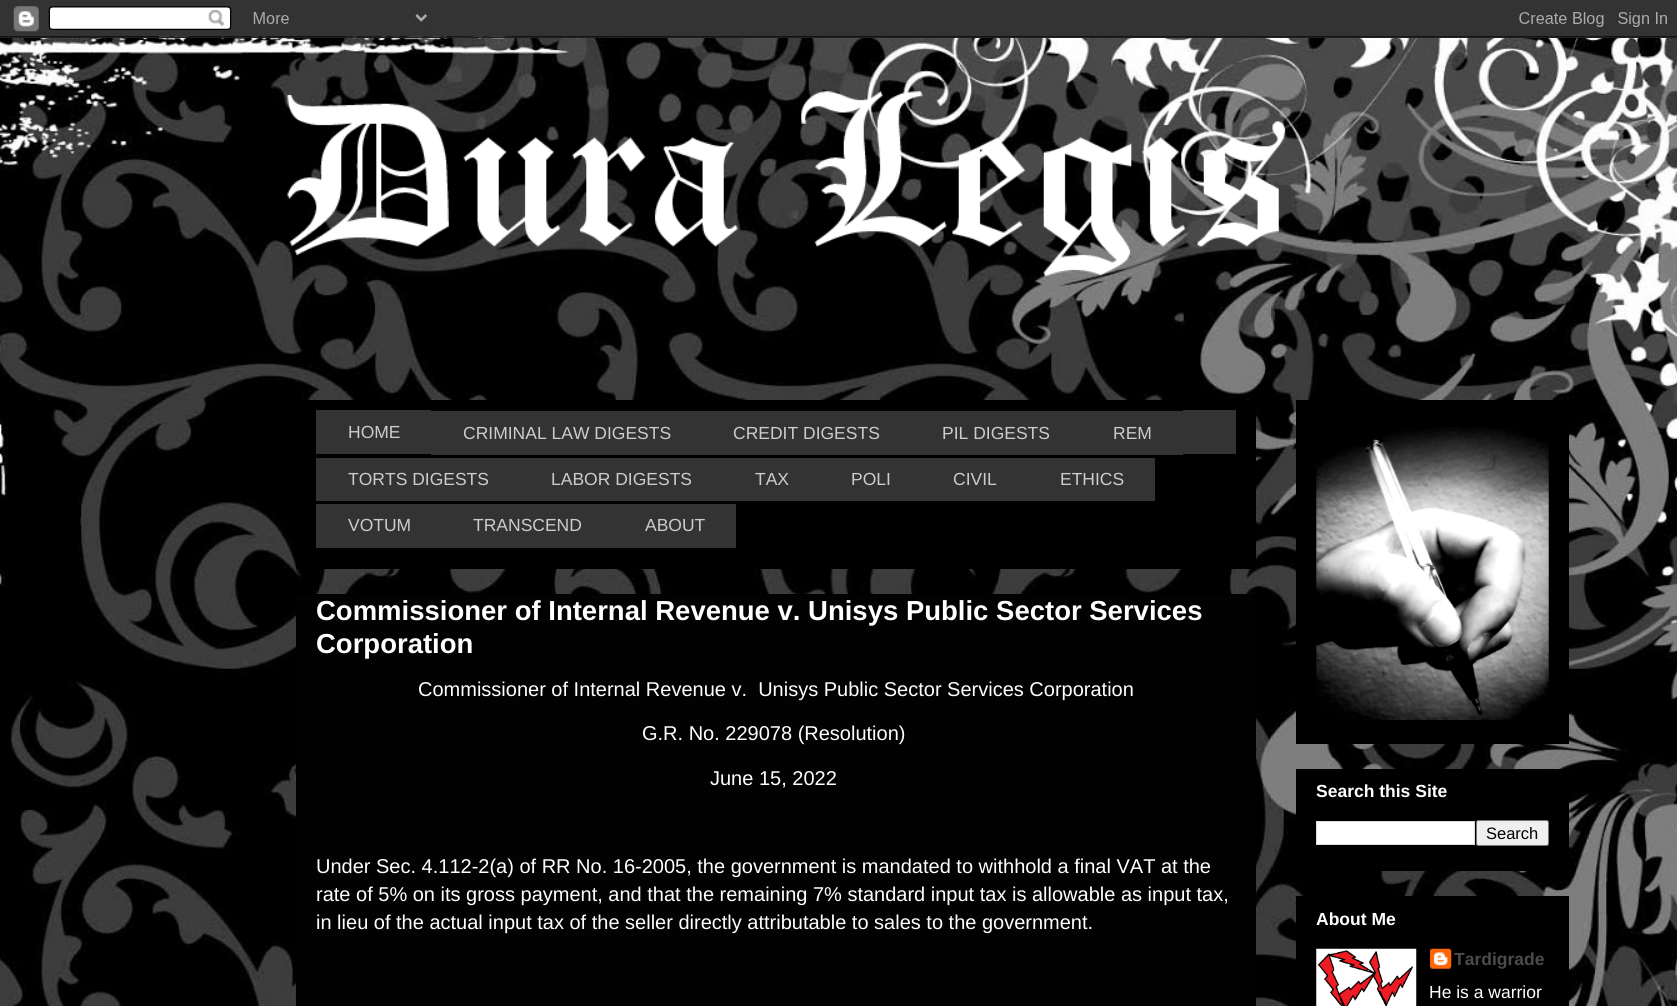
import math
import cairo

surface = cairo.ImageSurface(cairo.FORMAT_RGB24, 1677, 1006)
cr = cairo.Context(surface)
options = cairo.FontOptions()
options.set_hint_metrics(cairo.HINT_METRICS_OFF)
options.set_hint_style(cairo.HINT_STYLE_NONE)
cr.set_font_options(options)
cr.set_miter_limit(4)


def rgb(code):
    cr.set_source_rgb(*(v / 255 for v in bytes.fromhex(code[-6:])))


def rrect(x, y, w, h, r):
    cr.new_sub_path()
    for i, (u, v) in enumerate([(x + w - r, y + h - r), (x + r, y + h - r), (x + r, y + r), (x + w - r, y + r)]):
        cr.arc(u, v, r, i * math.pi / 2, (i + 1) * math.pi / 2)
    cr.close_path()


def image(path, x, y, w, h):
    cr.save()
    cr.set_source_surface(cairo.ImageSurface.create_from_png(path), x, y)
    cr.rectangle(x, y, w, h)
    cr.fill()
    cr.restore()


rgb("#ffffff")
cr.paint()
image("img/1.png", 0, 36, 1677, 970)
image("img/2.png", 0, 0, 1677, 38)
image("img/3.png", 287, 91, 999, 186)
for x, y, w, h, color in [
    (296, 400, 960, 169, "#000000"),
    (316, 410, 920, 44, "#333333"),
    (431, 410, 752, 1, "#000000"),
    (431, 454, 752, 1, "#333333"),
    (316, 458, 839, 43, "#333333"),
    (316, 504, 420, 44, "#333333"),
]:
    rgb(color)
    cr.rectangle(x, y, w, h)
    cr.fill()
rgb("#020202")
cr.rectangle(296.5, 594.5, 959, 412)
cr.fill_preserve()
rgb("#000000")
cr.set_line_width(1)
cr.stroke()
cr.rectangle(1296, 400, 273, 344)
cr.fill()
image("img/4.png", 1316, 427, 233, 293)
cr.rectangle(1296, 769, 273, 102)
cr.fill()
rgb("#ffffff")
cr.rectangle(1316.5, 821.5, 158, 23)
cr.fill_preserve()
rgb("#dddddd")
cr.stroke()
rgb("#efefef")
rrect(1476.5, 820.5, 72, 25, 2)
cr.fill_preserve()
rgb("#767676")
cr.stroke()
rgb("#000000")
cr.rectangle(1296, 896, 273, 110)
cr.fill()
image("img/5.png", 1316, 948, 101, 58)
image("img/6.png", 1430, 948, 22, 21)
cr.select_font_face("Liberation Sans")
cr.set_font_size(17.5)
rgb("#cccccc")
for x, y, s in [
    (348, 438, "HOME"),
    (463, 439, "CRIMINAL LAW DIGESTS"),
    (733, 439, "CREDIT DIGESTS"),
    (942, 439, "PIL DIGESTS"),
    (1113, 439, "REM"),
    (348, 485, "TORTS DIGESTS"),
    (551, 485, "LABOR DIGESTS"),
    (755, 485, "TAX"),
    (851, 485, "POLI"),
    (953, 485, "CIVIL"),
    (1060, 485, "ETHICS"),
    (348, 531, "VOTUM"),
    (473, 531, "TRANSCEND"),
    (645, 531, "ABOUT"),
]:
    cr.move_to(x, y)
    cr.show_text(s)
cr.select_font_face("Liberation Sans", cairo.FONT_SLANT_NORMAL, cairo.FONT_WEIGHT_BOLD)
cr.set_font_size(27.5)
rgb("#ffffff")
cr.move_to(316, 620)
cr.show_text("Commissioner of Internal Revenue v. Unisys Public Sector Services")
cr.move_to(316, 653)
cr.show_text("Corporation")
cr.select_font_face("Liberation Sans")
cr.set_font_size(20)
for x, y, s in [
    (418, 696, "Commissioner of Internal Revenue v.  Unisys Public Sector Services Corporation"),
    (642, 740, "G.R. No. 229078 (Resolution)"),
    (710, 785, "June 15, 2022"),
    (316, 873, "Under Sec. 4.112-2(a) of RR No. 16-2005, the government is mandated to withhold a final VAT at the"),
    (316, 901, "rate of 5% on its gross payment, and that the remaining 7% standard input tax is allowable as input tax,"),
    (316, 929, "in lieu of the actual input tax of the seller directly attributable to sales to the government."),
]:
    cr.move_to(x, y)
    cr.show_text(s)
cr.select_font_face("Liberation Sans", cairo.FONT_SLANT_NORMAL, cairo.FONT_WEIGHT_BOLD)
cr.set_font_size(17.5)
cr.move_to(1316, 797)
cr.show_text("Search this Site")
cr.select_font_face("Liberation Sans")
cr.set_font_size(16.5)
rgb("#000000")
cr.move_to(1486, 839)
cr.show_text("Search")
cr.select_font_face("Liberation Sans", cairo.FONT_SLANT_NORMAL, cairo.FONT_WEIGHT_BOLD)
cr.set_font_size(17.5)
rgb("#ffffff")
cr.move_to(1316, 925)
cr.show_text("About Me")
rgb("#4b4b4b")
cr.move_to(1454, 965)
cr.show_text("Tardigrade")
cr.select_font_face("Liberation Sans")
rgb("#ffffff")
cr.move_to(1429, 998)
cr.show_text("He is a warrior")
surface.write_to_png("page.png")
